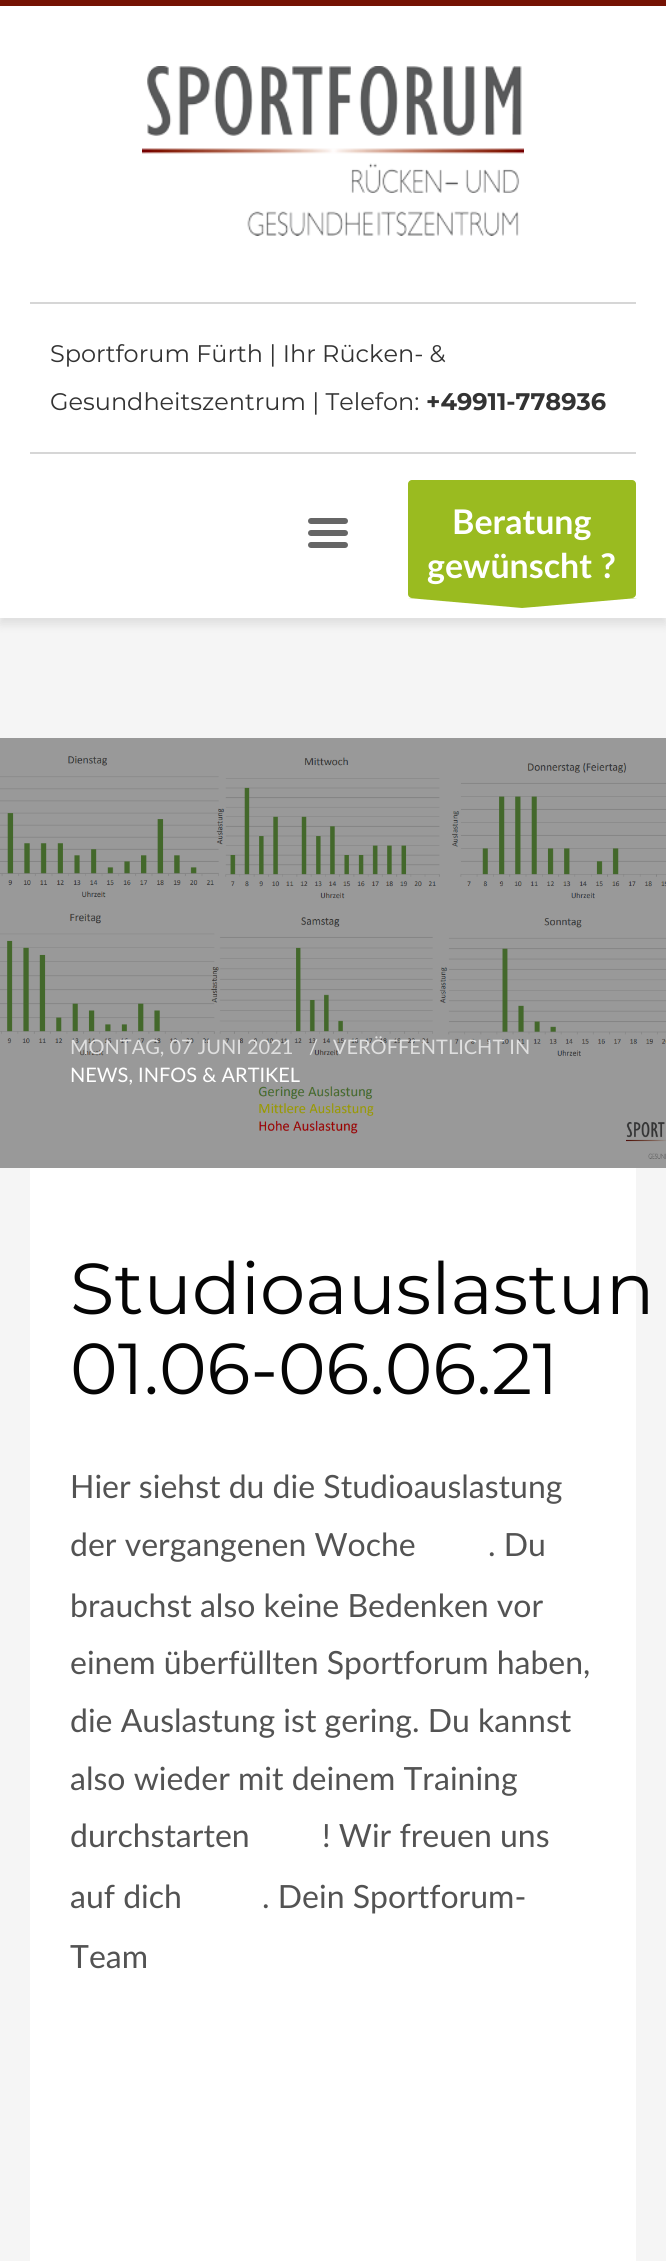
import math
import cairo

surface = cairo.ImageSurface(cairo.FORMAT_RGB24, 666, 2261)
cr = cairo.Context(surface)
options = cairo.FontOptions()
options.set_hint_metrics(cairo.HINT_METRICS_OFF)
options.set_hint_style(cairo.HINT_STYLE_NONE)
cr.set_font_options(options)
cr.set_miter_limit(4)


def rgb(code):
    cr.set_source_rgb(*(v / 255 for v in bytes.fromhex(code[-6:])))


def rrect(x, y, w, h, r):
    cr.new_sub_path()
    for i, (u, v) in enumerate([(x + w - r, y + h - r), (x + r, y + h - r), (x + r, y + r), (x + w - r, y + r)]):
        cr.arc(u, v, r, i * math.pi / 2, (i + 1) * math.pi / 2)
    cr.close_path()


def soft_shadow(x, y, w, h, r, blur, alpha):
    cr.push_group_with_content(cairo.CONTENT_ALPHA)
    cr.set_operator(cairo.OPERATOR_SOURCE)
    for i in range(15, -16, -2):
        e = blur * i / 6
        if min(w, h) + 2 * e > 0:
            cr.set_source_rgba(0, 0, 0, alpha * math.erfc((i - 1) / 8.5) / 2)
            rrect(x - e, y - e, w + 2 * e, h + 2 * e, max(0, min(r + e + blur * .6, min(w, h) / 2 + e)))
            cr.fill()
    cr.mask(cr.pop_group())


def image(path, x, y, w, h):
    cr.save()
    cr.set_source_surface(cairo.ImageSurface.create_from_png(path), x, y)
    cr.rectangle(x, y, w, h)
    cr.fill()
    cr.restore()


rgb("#f5f5f5")
cr.paint()
rgb("#000000")
soft_shadow(0, 6, 666, 618, 0, 5, 0.1)
rgb("#ffffff")
cr.rectangle(0, 6, 666, 612)
cr.fill()
rgb("#751304")
cr.rectangle(0, 0, 666, 6)
cr.fill()
image("img/1.png", 142, 66, 382, 170)
rgb("#d6d6d6")
cr.rectangle(30, 302, 606, 2)
cr.fill()
cr.rectangle(30, 452, 606, 2)
cr.fill()
rgb("#666666")
rrect(308, 518, 40, 6, 3)
cr.fill()
rrect(308, 530, 40, 6, 3)
cr.fill()
rrect(308, 542, 40, 6, 3)
cr.fill()
rgb("#9abb20")
rrect(408, 480, 228, 118, 4)
cr.fill()
cr.set_fill_rule(cairo.FILL_RULE_EVEN_ODD)
cr.new_path()
cr.move_to(637, 598)
cr.line_to(522, 608)
cr.line_to(408, 598)
cr.close_path()
cr.fill()
rgb("#ffffff")
cr.rectangle(30, 1168, 606, 1093)
cr.fill()
image("img/2.png", 0, 738, 666, 430)
cr.select_font_face("Montserrat")
cr.set_font_size(24)
rgb("#333333")
cr.move_to(50, 362)
cr.show_text("Sportforum Fürth | Ihr Rücken- &")
cr.move_to(50, 410)
cr.show_text("Gesundheitszentrum | Telefon:")
cr.select_font_face("Montserrat", cairo.FONT_SLANT_NORMAL, cairo.FONT_WEIGHT_BOLD)
cr.move_to(426, 410)
cr.show_text("+49911-778936")
cr.select_font_face("Lato", cairo.FONT_SLANT_NORMAL, cairo.FONT_WEIGHT_BOLD)
cr.set_font_size(34)
rgb("#ffffff")
cr.move_to(452, 534)
cr.show_text("Beratung")
cr.move_to(427, 578)
cr.show_text("gewünscht ?")
cr.select_font_face("Lato")
cr.set_font_size(20)
rgb("#dfdfdf")
for x, y, s in [
    (70, 1054, "MONTAG, 07 JUNI 2021"),
    (309, 1054, "/"),
    (333, 1054, "VERÖFFENTLICHT IN"),
]:
    cr.move_to(x, y)
    cr.show_text(s)
rgb("#ffffff")
cr.move_to(70, 1082)
cr.show_text("NEWS, INFOS & ARTIKEL")
cr.select_font_face("Montserrat")
cr.set_font_size(72)
rgb("#050505")
cr.move_to(70, 1314)
cr.show_text("Studioauslastun")
cr.move_to(70, 1394)
cr.show_text("01.06-06.06.21")
cr.select_font_face("Lato")
cr.set_font_size(32)
rgb("#535353")
for x, y, s in [
    (70, 1498, "Hier siehst du die Studioauslastung"),
    (70, 1556, "der vergangenen Woche"),
    (488, 1556, ". Du"),
    (70, 1617, "brauchst also keine Bedenken vor"),
    (70, 1674, "einem überfüllten Sportforum haben,"),
    (70, 1732, "die Auslastung ist gering. Du kannst"),
    (70, 1790, "also wieder mit deinem Training"),
    (70, 1847, "durchstarten"),
    (322, 1847, "! Wir freuen uns"),
    (70, 1908, "auf dich"),
    (262, 1908, ". Dein Sportforum-"),
    (70, 1968, "Team"),
]:
    cr.move_to(x, y)
    cr.show_text(s)
surface.write_to_png("page.png")
